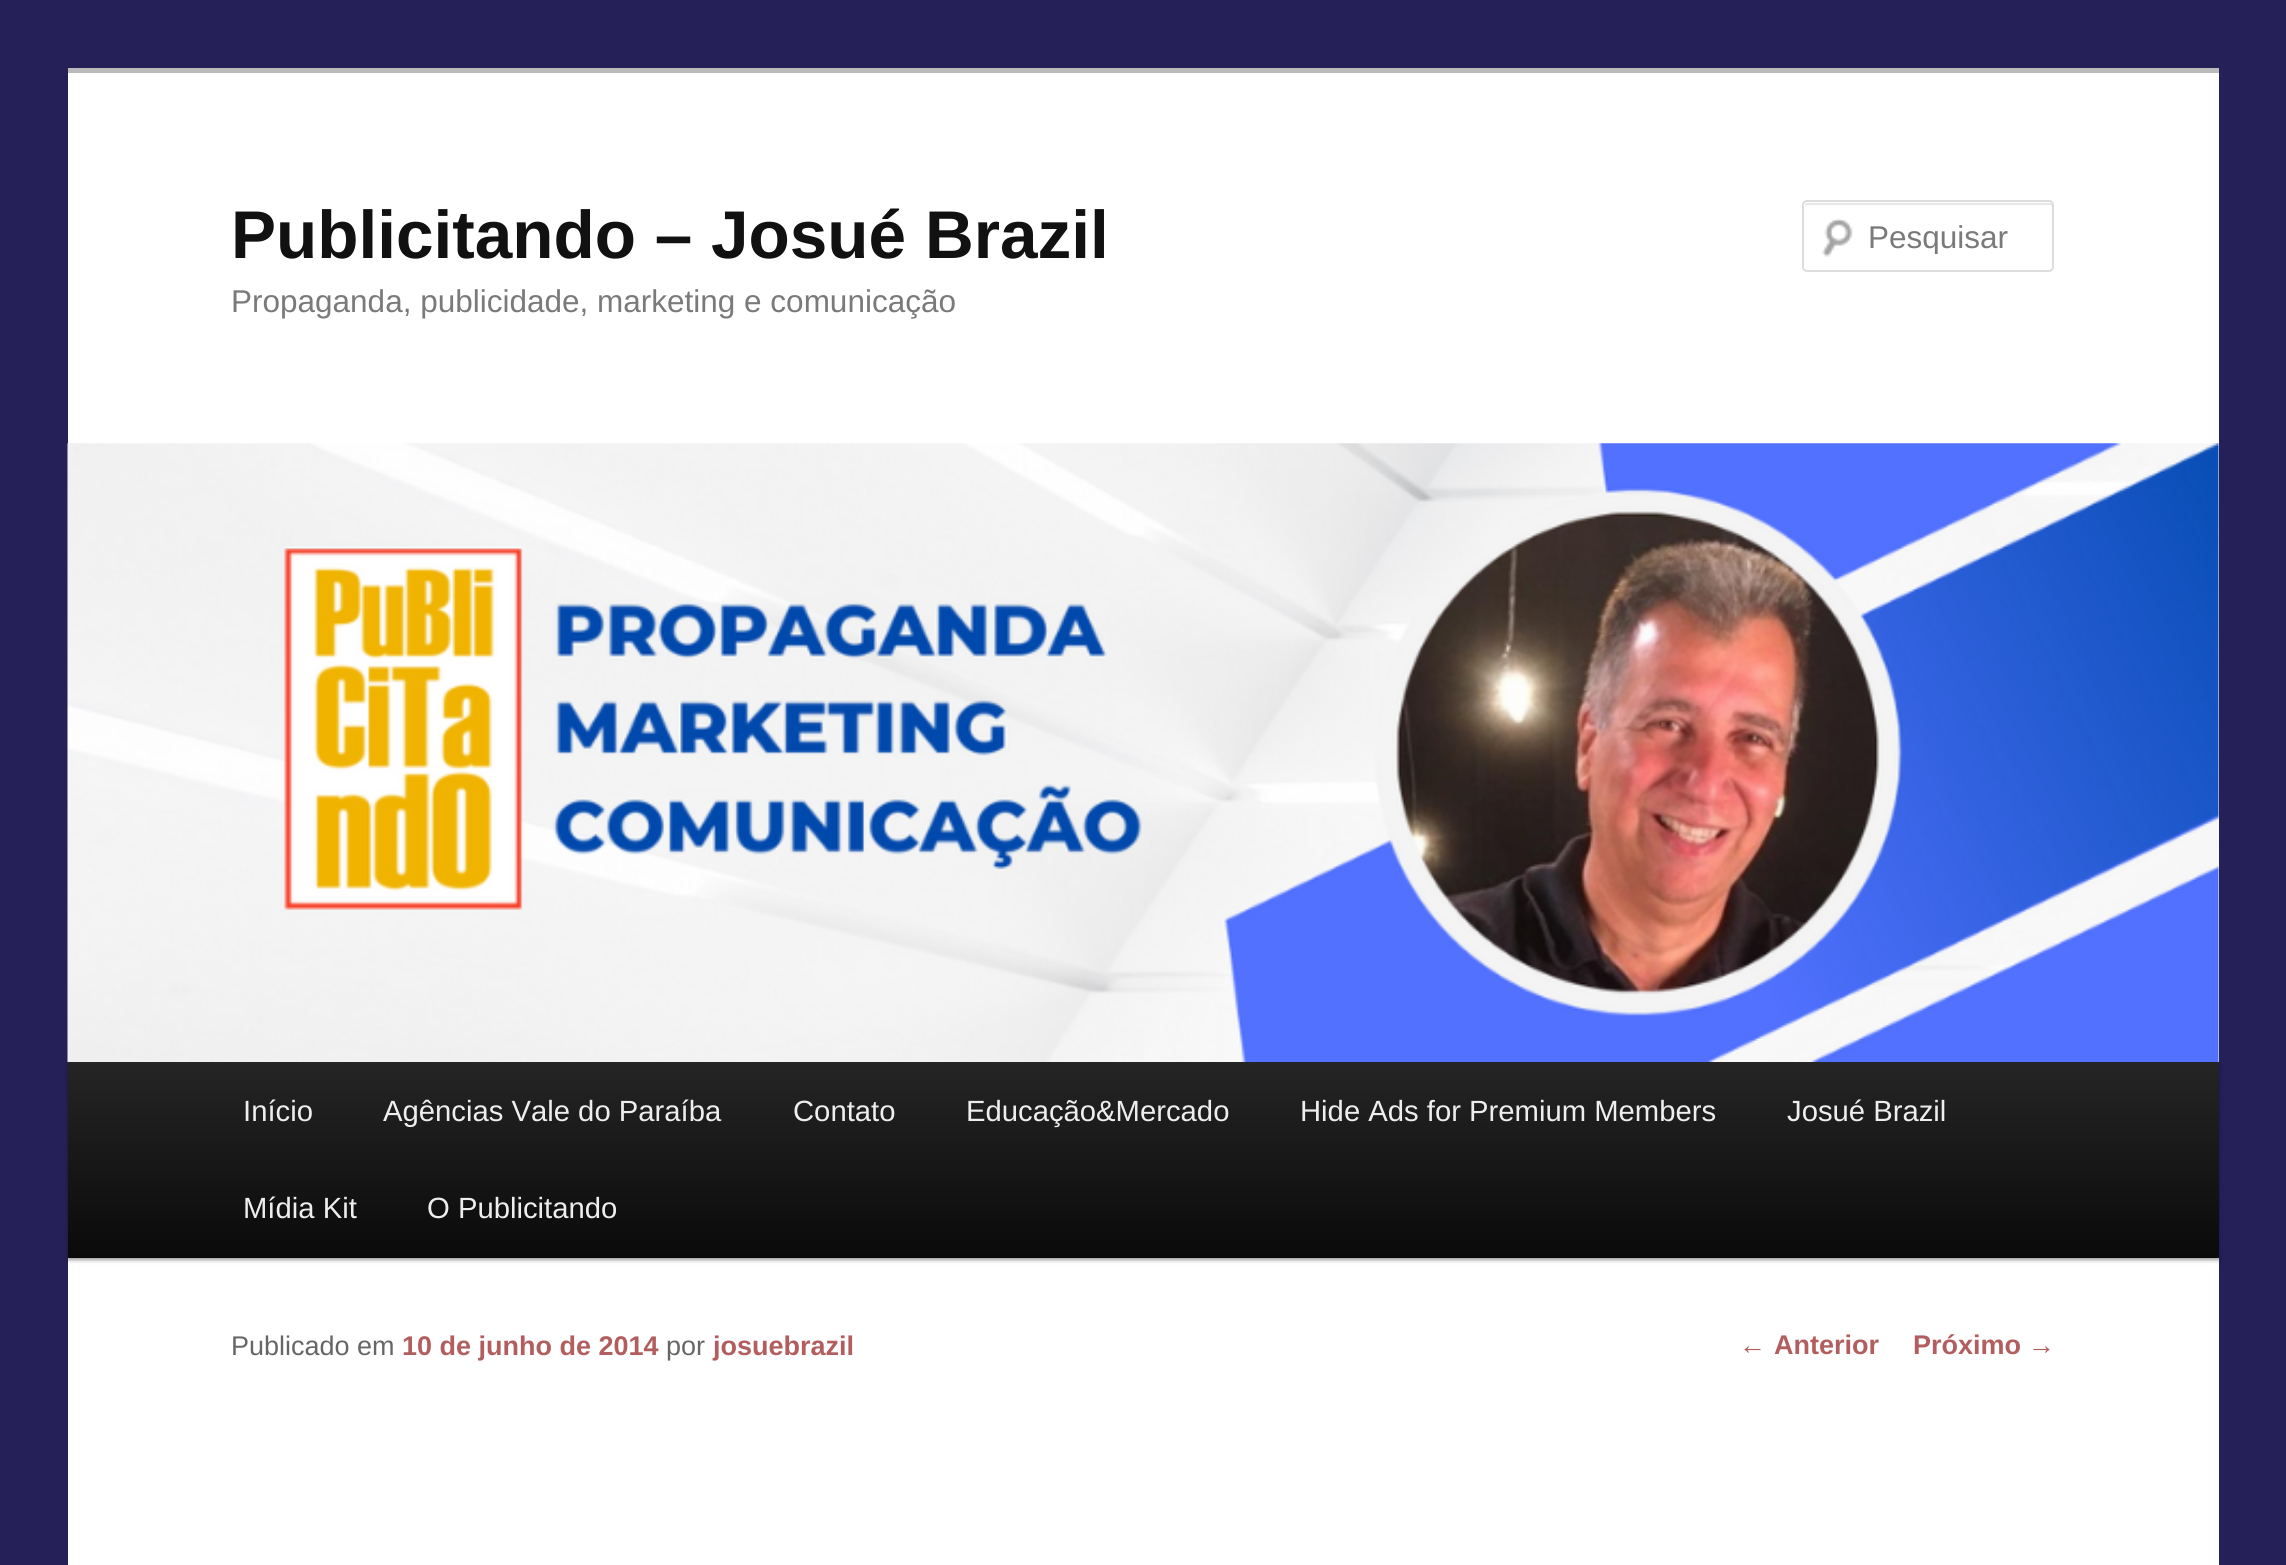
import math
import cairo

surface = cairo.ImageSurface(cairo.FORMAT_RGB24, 2286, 1565)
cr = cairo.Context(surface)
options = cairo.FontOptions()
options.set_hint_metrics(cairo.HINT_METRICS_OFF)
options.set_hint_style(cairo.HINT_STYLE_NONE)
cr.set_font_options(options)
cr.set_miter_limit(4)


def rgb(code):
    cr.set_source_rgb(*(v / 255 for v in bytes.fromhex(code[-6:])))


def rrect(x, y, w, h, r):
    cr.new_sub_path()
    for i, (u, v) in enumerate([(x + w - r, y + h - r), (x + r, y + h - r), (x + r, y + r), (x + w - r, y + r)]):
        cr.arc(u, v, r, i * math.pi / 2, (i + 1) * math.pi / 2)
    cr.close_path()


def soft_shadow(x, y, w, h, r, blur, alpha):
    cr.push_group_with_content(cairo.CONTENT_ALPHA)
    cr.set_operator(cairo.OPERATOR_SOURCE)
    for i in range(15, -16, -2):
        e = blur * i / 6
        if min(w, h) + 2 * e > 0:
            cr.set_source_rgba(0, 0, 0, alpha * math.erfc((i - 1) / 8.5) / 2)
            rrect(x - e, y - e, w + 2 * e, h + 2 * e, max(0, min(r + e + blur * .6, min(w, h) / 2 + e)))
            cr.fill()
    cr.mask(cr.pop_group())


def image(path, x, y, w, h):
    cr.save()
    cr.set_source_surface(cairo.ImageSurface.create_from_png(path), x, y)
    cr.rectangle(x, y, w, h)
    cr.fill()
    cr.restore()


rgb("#262059")
cr.paint()
rgb("#ffffff")
cr.rectangle(68, 73, 2151, 1492)
cr.fill()
rgb("#bbbbbb")
cr.rectangle(68, 68, 2151, 5)
cr.fill()
image("img/1.png", 1822, 218, 31, 39)
rgb("#e6e6e6")
cr.new_path()
cr.move_to(1807, 205)
cr.line_to(2050, 205)
cr.curve_to(2051, 205, 2052, 206, 2052, 207)
cr.line_to(2052, 205)
cr.curve_to(2052, 204, 2051, 203, 2050, 203)
cr.line_to(1807, 203)
cr.curve_to(1806, 203, 1805, 204, 1805, 205)
cr.line_to(1805, 206)
cr.close_path()
cr.fill()
rrect(1803, 201, 250, 70, 4)
rgb("#dddddd")
cr.stroke()
rgb("#000000")
soft_shadow(68, 1064, 2151, 196, 0, 2, 0.4)
image("img/2.png", 67, 443, 2152, 619)
gradient = cairo.LinearGradient(1143, 1062, 1143, 1258)
gradient.add_color_stop_rgba(0, 0.145, 0.145, 0.145, 1)
gradient.add_color_stop_rgba(1, 0.039, 0.039, 0.039, 1)
cr.set_source(gradient)
cr.rectangle(68, 1062, 2151, 196)
cr.fill()
cr.select_font_face("Liberation Sans", cairo.FONT_SLANT_NORMAL, cairo.FONT_WEIGHT_BOLD)
cr.set_font_size(67.5)
rgb("#111111")
cr.move_to(231, 258)
cr.show_text("Publicitando – Josué Brazil")
cr.select_font_face("Liberation Sans")
cr.set_font_size(31.5)
rgb("#7a7a7a")
cr.move_to(231, 312)
cr.show_text("Propaganda, publicidade, marketing e comunicação")
cr.save()
cr.rectangle(1868, 218, 162, 36)
cr.clip()
cr.move_to(1868, 248)
cr.show_text("Pesquisar")
cr.restore()
cr.set_font_size(29.25)
rgb("#eeeeee")
for x, y, s in [
    (243, 1121, "Início"),
    (383, 1121, "Agências Vale do Paraíba"),
    (793, 1121, "Contato"),
    (966, 1121, "Educação&Mercado"),
    (1300, 1121, "Hide Ads for Premium Members"),
    (1787, 1121, "Josué Brazil"),
    (243, 1218, "Mídia Kit"),
    (427, 1218, "O Publicitando"),
]:
    cr.move_to(x, y)
    cr.show_text(s)
cr.set_font_size(27)
rgb("#666666")
cr.move_to(231, 1355)
cr.show_text("Publicado em")
cr.select_font_face("Liberation Sans", cairo.FONT_SLANT_NORMAL, cairo.FONT_WEIGHT_BOLD)
rgb("#b25e5e")
cr.move_to(402, 1355)
cr.show_text("10 de junho de 2014")
cr.select_font_face("Liberation Sans")
rgb("#666666")
cr.move_to(666, 1355)
cr.show_text("por")
cr.select_font_face("Liberation Sans", cairo.FONT_SLANT_NORMAL, cairo.FONT_WEIGHT_BOLD)
rgb("#b25e5e")
cr.move_to(713, 1355)
cr.show_text("josuebrazil")
cr.select_font_face("Liberation Sans")
cr.move_to(1739, 1354)
cr.show_text("←")
cr.select_font_face("Liberation Sans", cairo.FONT_SLANT_NORMAL, cairo.FONT_WEIGHT_BOLD)
cr.move_to(1774, 1354)
cr.show_text("Anterior")
cr.move_to(1913, 1354)
cr.show_text("Próximo")
cr.select_font_face("Liberation Sans")
cr.move_to(2028, 1354)
cr.show_text("→")
surface.write_to_png("page.png")
